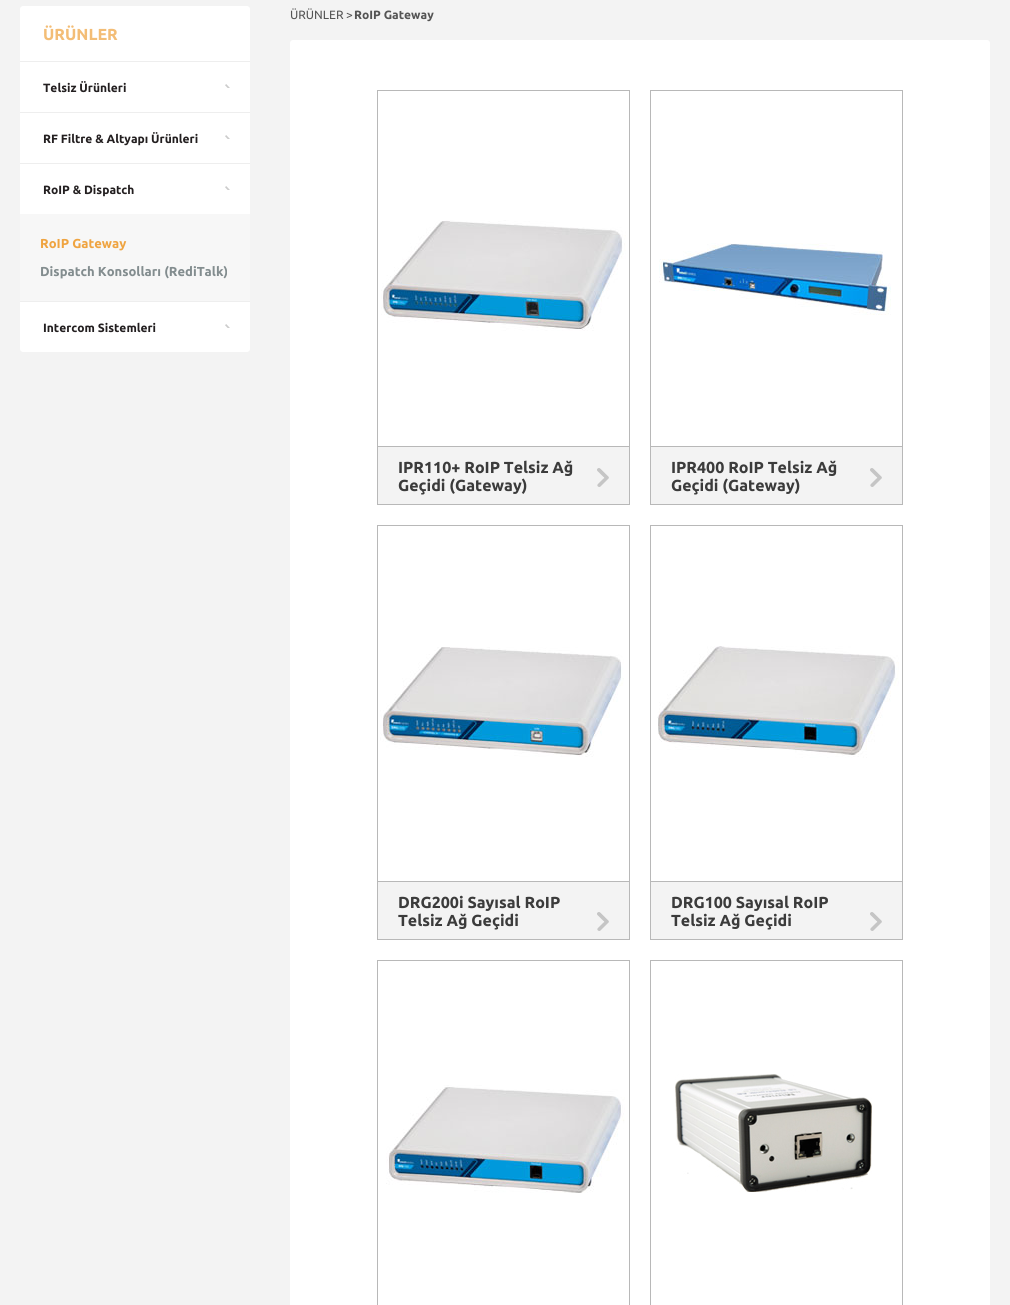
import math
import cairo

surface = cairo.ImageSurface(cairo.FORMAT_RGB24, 1010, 1305)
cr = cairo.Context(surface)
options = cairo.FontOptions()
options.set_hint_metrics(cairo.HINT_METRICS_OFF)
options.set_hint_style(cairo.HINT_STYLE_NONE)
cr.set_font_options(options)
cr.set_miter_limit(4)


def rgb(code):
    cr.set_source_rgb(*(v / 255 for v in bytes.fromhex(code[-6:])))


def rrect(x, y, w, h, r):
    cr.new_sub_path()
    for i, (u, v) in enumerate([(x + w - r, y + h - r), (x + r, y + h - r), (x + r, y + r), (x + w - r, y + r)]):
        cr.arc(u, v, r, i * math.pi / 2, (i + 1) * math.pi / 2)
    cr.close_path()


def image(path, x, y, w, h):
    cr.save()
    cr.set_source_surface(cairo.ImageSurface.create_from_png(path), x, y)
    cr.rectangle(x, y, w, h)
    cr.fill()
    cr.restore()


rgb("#f3f3f3")
cr.paint()
rgb("#ffffff")
cr.new_path()
cr.move_to(23, 6)
cr.line_to(247, 6)
cr.curve_to(248.5, 6, 250, 7.5, 250, 9)
cr.line_to(250, 61)
cr.line_to(20, 61)
cr.line_to(20, 9)
cr.curve_to(20, 7.5, 21.5, 6, 23, 6)
cr.close_path()
cr.fill()
rgb("#eeeeee")
cr.rectangle(20, 61, 230, 1)
cr.fill()
rgb("#ffffff")
cr.rectangle(20, 62, 230, 50)
cr.fill()
image("img/1.png", 225, 84, 5, 4)
rgb("#eeeeee")
cr.rectangle(20, 112, 230, 1)
cr.fill()
rgb("#ffffff")
cr.rectangle(20, 113, 230, 50)
cr.fill()
image("img/1.png", 225, 135, 5, 4)
rgb("#eeeeee")
cr.rectangle(20, 163, 230, 1)
cr.fill()
rgb("#ffffff")
cr.rectangle(20, 164, 230, 50)
cr.fill()
image("img/1.png", 225, 186, 5, 4)
rgb("#f7f7f7")
cr.rectangle(20, 214, 230, 87)
cr.fill()
rgb("#eeeeee")
cr.rectangle(20, 301, 230, 1)
cr.fill()
rgb("#ffffff")
cr.new_path()
cr.move_to(20, 302)
cr.line_to(250, 302)
cr.line_to(250, 349)
cr.curve_to(250, 350.5, 248.5, 352, 247, 352)
cr.line_to(23, 352)
cr.curve_to(21.5, 352, 20, 350.5, 20, 349)
cr.close_path()
cr.fill()
image("img/1.png", 225, 324, 5, 4)
rrect(290, 40, 700, 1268, 3)
cr.fill()
cr.rectangle(377.5, 90.5, 252, 414)
rgb("#b8b8b8")
cr.set_line_width(1)
cr.stroke()
image("img/2.png", 381, 220, 245, 111)
cr.rectangle(378, 446, 251, 1)
cr.fill()
rgb("#f3f3f3")
cr.rectangle(378, 447, 251, 57)
cr.fill()
image("img/3.png", 597, 468, 12, 19)
cr.rectangle(650.5, 90.5, 252, 414)
rgb("#b8b8b8")
cr.stroke()
image("img/4.png", 659, 243, 232, 72)
cr.rectangle(651, 446, 251, 1)
cr.fill()
rgb("#f3f3f3")
cr.rectangle(651, 447, 251, 57)
cr.fill()
image("img/3.png", 870, 468, 12, 19)
cr.rectangle(377.5, 525.5, 252, 414)
rgb("#b8b8b8")
cr.stroke()
image("img/5.png", 380, 647, 244, 110)
cr.rectangle(378, 881, 251, 1)
cr.fill()
rgb("#f3f3f3")
cr.rectangle(378, 882, 251, 57)
cr.fill()
image("img/3.png", 597, 912, 12, 19)
cr.rectangle(650.5, 525.5, 252, 414)
rgb("#b8b8b8")
cr.stroke()
image("img/6.png", 657, 646, 242, 112)
cr.rectangle(651, 881, 251, 1)
cr.fill()
rgb("#f3f3f3")
cr.rectangle(651, 882, 251, 57)
cr.fill()
image("img/3.png", 870, 912, 12, 19)
cr.rectangle(377.5, 960.5, 252, 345)
rgb("#b8b8b8")
cr.stroke()
image("img/7.png", 386, 1085, 239, 108)
cr.rectangle(650.5, 960.5, 252, 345)
cr.stroke()
image("img/8.png", 675, 1074, 197, 118)
cr.select_font_face("Ubuntu", cairo.FONT_SLANT_NORMAL, cairo.FONT_WEIGHT_BOLD)
cr.set_font_size(16)
rgb("#f3bd76")
cr.move_to(43, 40)
cr.show_text("ÜRÜNLER")
cr.set_font_size(12)
rgb("#231f20")
for x, y, s in [
    (43, 92, "Telsiz Ürünleri"),
    (43, 143, "RF Filtre & Altyapı Ürünleri"),
    (43, 194, "RoIP & Dispatch"),
]:
    cr.move_to(x, y)
    cr.show_text(s)
cr.set_font_size(13)
rgb("#efa441")
cr.move_to(40, 248)
cr.show_text("RoIP Gateway")
rgb("#838d8f")
cr.move_to(40, 276)
cr.show_text("Dispatch Konsolları (RediTalk)")
cr.set_font_size(12)
rgb("#231f20")
cr.move_to(43, 332)
cr.show_text("Intercom Sistemleri")
cr.select_font_face("Ubuntu")
rgb("#545454")
cr.move_to(290, 19)
cr.show_text("ÜRÜNLER")
cr.move_to(346, 19)
cr.show_text(">")
cr.select_font_face("Ubuntu", cairo.FONT_SLANT_NORMAL, cairo.FONT_WEIGHT_BOLD)
cr.move_to(354, 19)
cr.show_text("RoIP Gateway")
cr.set_font_size(16)
rgb("#3b3b3b")
for x, y, s in [
    (398, 473, "IPR110+ RoIP Telsiz Ağ"),
    (398, 491, "Geçidi (Gateway)"),
    (671, 473, "IPR400 RoIP Telsiz Ağ"),
    (671, 491, "Geçidi (Gateway)"),
    (398, 908, "DRG200i Sayısal RoIP"),
    (398, 926, "Telsiz Ağ Geçidi"),
    (671, 908, "DRG100 Sayısal RoIP"),
    (671, 926, "Telsiz Ağ Geçidi"),
]:
    cr.move_to(x, y)
    cr.show_text(s)
surface.write_to_png("page.png")
